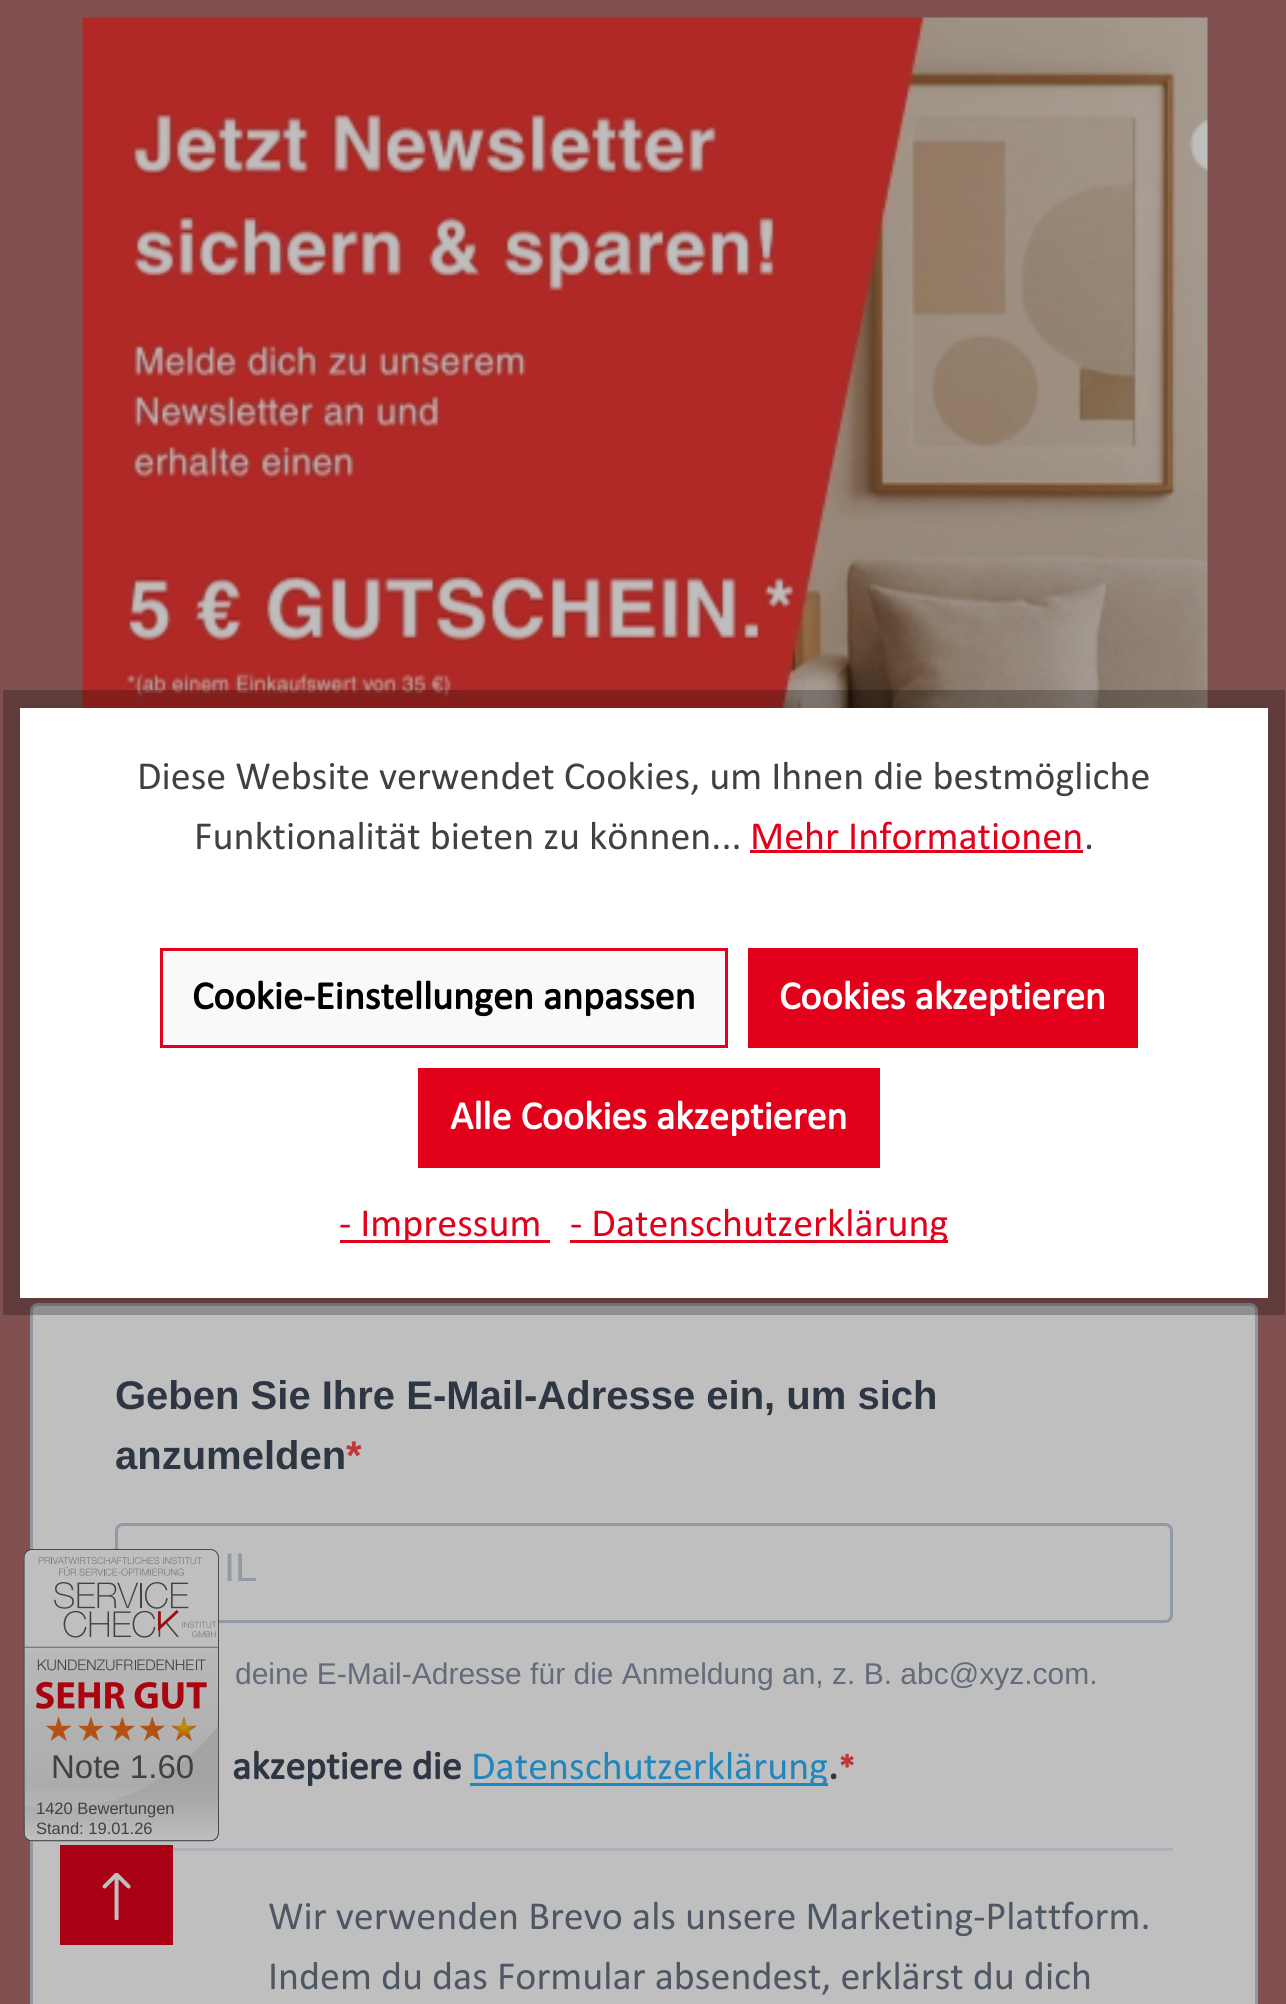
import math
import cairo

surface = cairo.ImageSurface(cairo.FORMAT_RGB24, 1286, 2004)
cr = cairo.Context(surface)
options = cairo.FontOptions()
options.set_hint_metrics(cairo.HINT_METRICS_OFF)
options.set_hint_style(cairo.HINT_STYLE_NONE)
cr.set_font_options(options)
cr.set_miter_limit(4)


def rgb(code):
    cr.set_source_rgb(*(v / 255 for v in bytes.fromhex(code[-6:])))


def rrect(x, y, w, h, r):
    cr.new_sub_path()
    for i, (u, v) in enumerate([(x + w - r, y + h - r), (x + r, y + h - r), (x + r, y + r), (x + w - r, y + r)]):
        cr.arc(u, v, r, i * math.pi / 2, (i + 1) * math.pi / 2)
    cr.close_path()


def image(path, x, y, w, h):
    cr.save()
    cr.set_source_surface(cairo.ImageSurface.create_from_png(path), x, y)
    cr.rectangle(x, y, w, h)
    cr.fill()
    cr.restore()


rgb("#815050")
cr.paint()
image("img/2.png", 82, 17, 1126, 691)
rgb("#bfbfbf")
rrect(31.5, 1304.5, 1225, 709, 6.5)
cr.fill_preserve()
rgb("#9099a3")
cr.set_line_width(3)
cr.stroke()
cr.rectangle(12, 699, 1264, 607)
cr.set_source_rgba(0, 0, 0, 0.25)
cr.set_line_width(18)
cr.stroke()
rgb("#ffffff")
cr.rectangle(20, 708, 1248, 590)
cr.fill()
rgb("#e3001b")
cr.rectangle(750, 850, 333, 3)
cr.fill()
rgb("#f9f9f9")
cr.rectangle(161.5, 949.5, 565, 97)
cr.fill_preserve()
rgb("#e3001b")
cr.set_line_width(3)
cr.stroke()
for x, y, w, h, color in [
    (748, 948, 390, 100, "#e3001b"),
    (418, 1068, 462, 100, "#e3001b"),
    (340, 1240, 210, 3, "#e3001b"),
    (570, 1240, 378, 3, "#e3001b"),
]:
    rgb(color)
    cr.rectangle(x, y, w, h)
    cr.fill()
rrect(116.5, 1524.5, 1055, 97, 6.5)
rgb("#9099a4")
cr.stroke()
image("img/1.png", 23, 1549, 196, 293)
for x, y, w, h, color in [
    (470, 1783, 358, 3, "#2086bd"),
    (173, 1848, 1000, 3, "#acb2b9"),
    (60, 1845, 113, 100, "#aa0014"),
]:
    rgb(color)
    cr.rectangle(x, y, w, h)
    cr.fill()
image("img/3.png", 102, 1873, 29, 47)
cr.select_font_face("Calibri")
cr.set_font_size(40)
rgb("#414141")
cr.move_to(137, 789)
cr.show_text("Diese Website verwendet Cookies, um Ihnen die bestmögliche")
cr.move_to(194, 849)
cr.show_text("Funktionalität bieten zu können...")
rgb("#e3001b")
cr.move_to(750, 849)
cr.show_text("Mehr Informationen")
rgb("#414141")
cr.move_to(1084, 849)
cr.show_text(".")
cr.select_font_face("Calibri", cairo.FONT_SLANT_NORMAL, cairo.FONT_WEIGHT_BOLD)
rgb("#000000")
cr.move_to(192, 1009)
cr.show_text("Cookie-Einstellungen anpassen")
rgb("#ffffff")
cr.move_to(779, 1009)
cr.show_text("Cookies akzeptieren")
cr.move_to(450, 1129)
cr.show_text("Alle Cookies akzeptieren")
cr.select_font_face("Calibri")
rgb("#e3001b")
cr.move_to(339, 1236)
cr.show_text("- Impressum")
cr.move_to(570, 1236)
cr.show_text("- Datenschutzerklärung")
cr.select_font_face("Liberation Sans")
cr.set_font_size(33)
rgb("#414141")
cr.move_to(51, 1778)
cr.show_text("Note 1.60")
cr.set_font_size(16.5)
cr.move_to(36, 1814)
cr.show_text("1420 Bewertungen")
cr.move_to(36, 1834)
cr.show_text("Stand: 19.01.26")
cr.select_font_face("Liberation Sans", cairo.FONT_SLANT_NORMAL, cairo.FONT_WEIGHT_BOLD)
cr.set_font_size(40)
rgb("#2d3642")
cr.move_to(115, 1409)
cr.show_text("Geben Sie Ihre E-Mail-Adresse ein, um sich")
cr.move_to(115, 1469)
cr.show_text("anzumelden")
rgb("#bf3737")
cr.move_to(346, 1469)
cr.show_text("*")
cr.select_font_face("Liberation Sans")
rgb("#9099a4")
cr.move_to(224, 1581)
cr.show_text("IL")
cr.set_font_size(30)
rgb("#626c7b")
cr.move_to(235, 1684)
cr.show_text("deine E-Mail-Adresse für die Anmeldung an, z. B. abc@xyz.com.")
cr.select_font_face("Calibri", cairo.FONT_SLANT_NORMAL, cairo.FONT_WEIGHT_BOLD)
cr.set_font_size(40)
rgb("#2d3642")
cr.move_to(232, 1779)
cr.show_text("akzeptiere die")
cr.select_font_face("Calibri")
rgb("#2086bd")
cr.move_to(471, 1779)
cr.show_text("Datenschutzerklärung")
cr.select_font_face("Calibri", cairo.FONT_SLANT_NORMAL, cairo.FONT_WEIGHT_BOLD)
cr.set_font_size(35)
rgb("#bf3737")
cr.move_to(838, 1779)
cr.show_text("*")
cr.set_font_size(40)
rgb("#2d3642")
cr.move_to(828, 1779)
cr.show_text(".")
cr.select_font_face("Calibri")
rgb("#4e5763")
cr.move_to(268, 1929)
cr.show_text("Wir verwenden Brevo als unsere Marketing-Plattform.")
cr.move_to(268, 1989)
cr.show_text("Indem du das Formular absendest, erklärst du dich")
surface.write_to_png("page.png")
